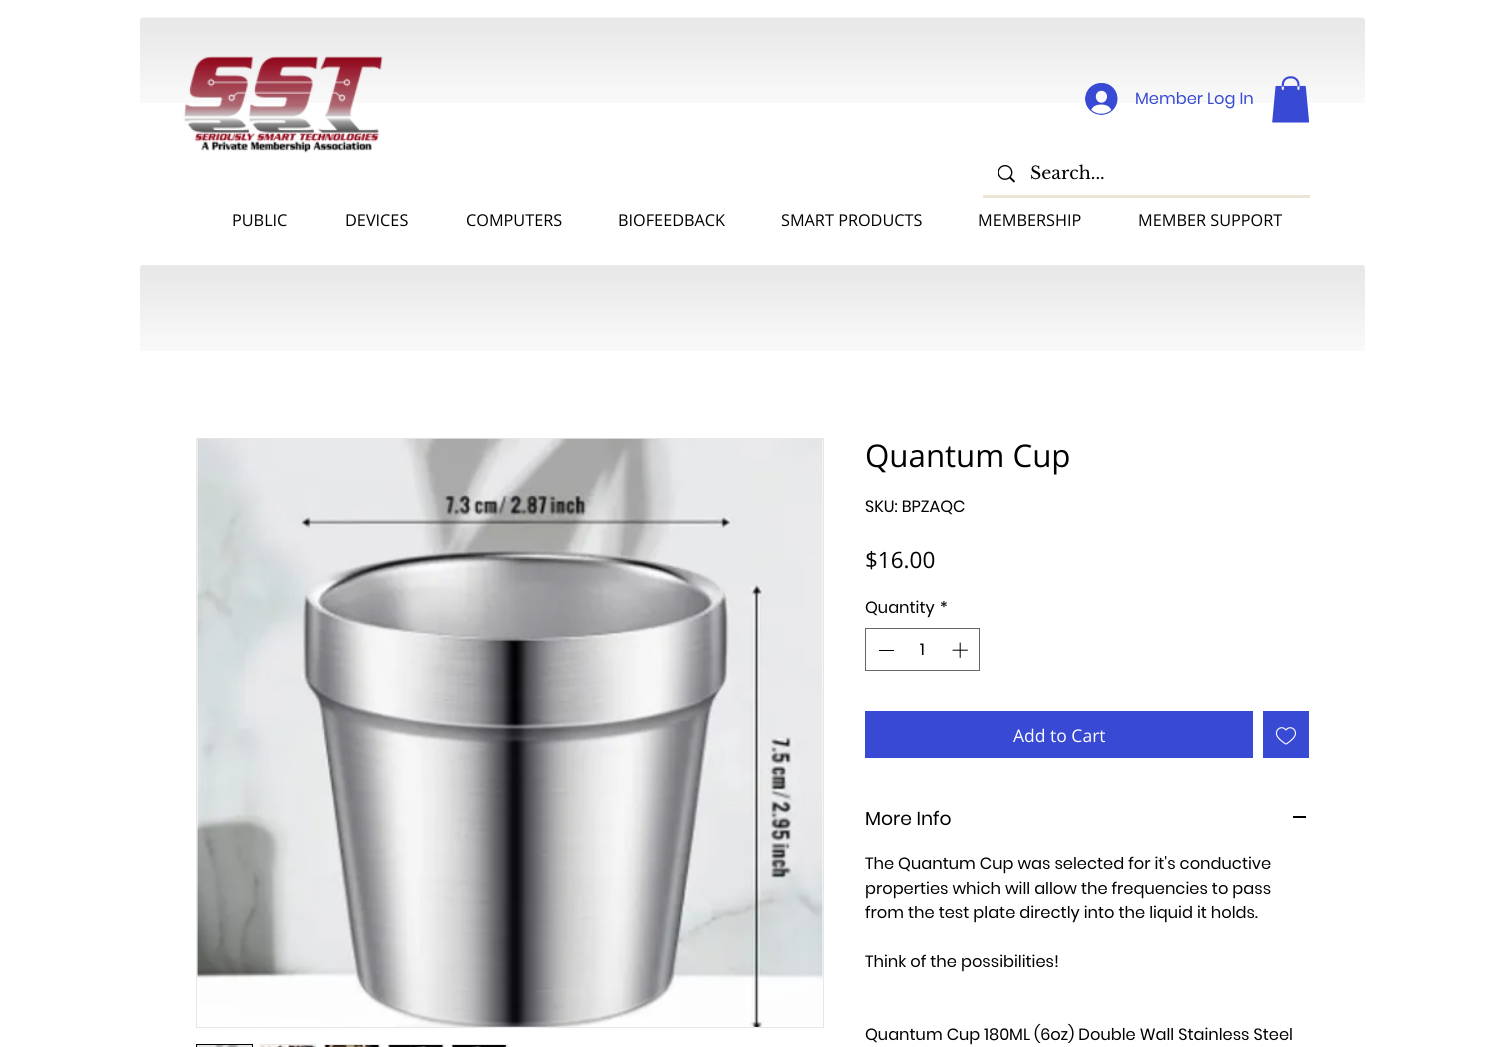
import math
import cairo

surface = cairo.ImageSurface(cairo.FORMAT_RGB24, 1505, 1047)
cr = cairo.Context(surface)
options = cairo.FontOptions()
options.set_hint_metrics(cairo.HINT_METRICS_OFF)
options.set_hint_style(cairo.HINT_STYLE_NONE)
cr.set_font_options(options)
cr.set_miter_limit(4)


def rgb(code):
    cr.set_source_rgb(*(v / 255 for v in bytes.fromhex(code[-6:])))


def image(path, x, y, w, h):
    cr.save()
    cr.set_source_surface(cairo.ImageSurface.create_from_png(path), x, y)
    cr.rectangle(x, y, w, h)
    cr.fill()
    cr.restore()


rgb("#ffffff")
cr.paint()
image("img/1.png", 140, 17, 1225, 86)
image("img/2.png", 183, 56, 200, 97)
image("img/3.png", 1085, 83, 33, 32)
image("img/4.png", 1272, 76, 38, 47)
rgb("#ebe5d6")
cr.rectangle(983, 195, 327, 3)
cr.fill()
image("img/5.png", 998, 165, 17, 18)
image("img/6.png", 140, 265, 1225, 86)
cr.rectangle(196.5, 438.5, 627, 589)
rgb("#e8e6e6")
cr.set_line_width(1)
cr.stroke()
image("img/7.png", 197, 438, 626, 589)
cr.rectangle(245, 1045, 8, 2)
cr.fill()
cr.rectangle(196.5, 1044.5, 56, 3)
rgb("#000000")
cr.stroke()
image("img/8.png", 197, 1045, 48, 2)
rgb("#e8e6e6")
cr.rectangle(260, 1044, 56, 3)
cr.fill()
image("img/9.png", 261, 1045, 55, 2)
cr.rectangle(324, 1044, 56, 3)
cr.fill()
image("img/10.png", 324, 1045, 56, 2)
cr.rectangle(388, 1044, 56, 3)
cr.fill()
image("img/11.png", 388, 1045, 55, 2)
cr.rectangle(451, 1044, 57, 3)
cr.fill()
image("img/12.png", 452, 1045, 54, 2)
cr.rectangle(865.5, 628.5, 114, 42)
rgb("#666666")
cr.stroke()
rgb("#000000")
cr.rectangle(879, 650, 15, 1)
cr.fill()
image("img/13.png", 952, 642, 16, 16)
rgb("#384ad3")
cr.rectangle(865, 711, 388, 47)
cr.fill()
cr.rectangle(1263, 711, 46, 47)
cr.fill()
image("img/14.png", 1275, 727, 21, 18)
rgb("#000000")
cr.rectangle(1293, 816, 13, 2)
cr.fill()
cr.select_font_face("Poppins")
cr.set_font_size(16.25)
rgb("#384ad3")
cr.move_to(1135, 104)
cr.show_text("Member Log In")
cr.select_font_face("Libre Baskerville")
cr.set_font_size(17.5)
rgb("#000000")
cr.move_to(1030, 179)
cr.show_text("Search...")
cr.select_font_face("Open Sans")
cr.set_font_size(16.25)
for x, y, s in [
    (232, 226, "PUBLIC"),
    (345, 226, "DEVICES"),
    (466, 226, "COMPUTERS"),
    (618, 226, "BIOFEEDBACK"),
    (781, 226, "SMART PRODUCTS"),
    (978, 226, "MEMBERSHIP"),
    (1138, 226, "MEMBER SUPPORT"),
]:
    cr.move_to(x, y)
    cr.show_text(s)
cr.set_font_size(31.25)
cr.move_to(865, 467)
cr.show_text("Quantum Cup")
cr.select_font_face("Poppins")
cr.set_font_size(16.25)
cr.move_to(865, 512)
cr.show_text("SKU: BPZAQC")
cr.select_font_face("Open Sans")
cr.set_font_size(22.5)
cr.move_to(865, 568)
cr.show_text("$16.00")
cr.select_font_face("Poppins")
cr.set_font_size(16.25)
for x, y, s in [
    (865, 613, "Quantity"),
    (940, 613, "*"),
    (920, 655, "1"),
]:
    cr.move_to(x, y)
    cr.show_text(s)
cr.select_font_face("Open Sans")
cr.set_font_size(17.5)
rgb("#ffffff")
cr.move_to(1013, 742)
cr.show_text("Add to Cart")
cr.select_font_face("Poppins")
cr.set_font_size(18.75)
rgb("#000000")
cr.move_to(865, 825)
cr.show_text("More Info")
cr.set_font_size(16.25)
for x, y, s in [
    (865, 869, "The Quantum Cup was selected for it's conductive"),
    (865, 894, "properties which will allow the frequencies to pass"),
    (865, 918, "from the test plate directly into the liquid it holds."),
    (865, 967, "Think of the possibilities!"),
    (865, 1040, "Quantum Cup 180ML (6oz) Double Wall Stainless Steel"),
]:
    cr.move_to(x, y)
    cr.show_text(s)
surface.write_to_png("page.png")
